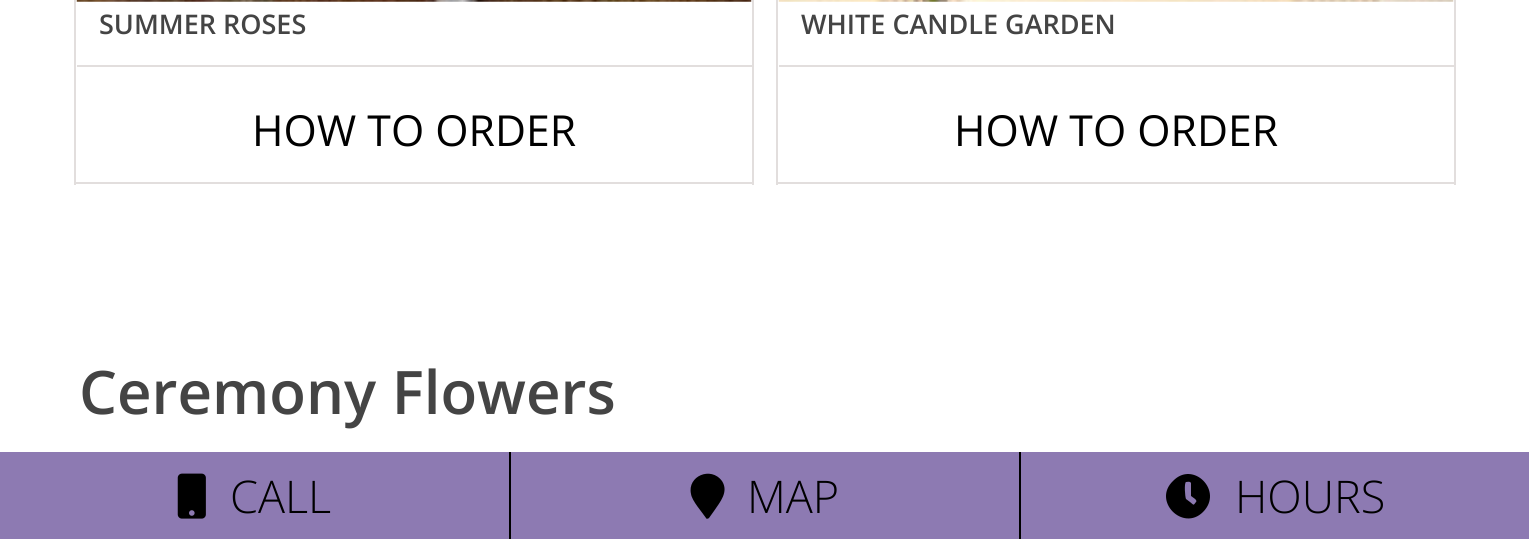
import math
import cairo

surface = cairo.ImageSurface(cairo.FORMAT_RGB24, 1529, 539)
cr = cairo.Context(surface)
options = cairo.FontOptions()
options.set_hint_metrics(cairo.HINT_METRICS_OFF)
options.set_hint_style(cairo.HINT_STYLE_NONE)
cr.set_font_options(options)
cr.set_miter_limit(4)


def rgb(code):
    cr.set_source_rgb(*(v / 255 for v in bytes.fromhex(code[-6:])))


def image(path, x, y, w, h):
    cr.save()
    cr.set_source_surface(cairo.ImageSurface.create_from_png(path), x, y)
    cr.rectangle(x, y, w, h)
    cr.fill()
    cr.restore()


rgb("#ffffff")
cr.paint()
for x, y, w, h, color in [
    (752, 0, 2, 185, "#e2dedd"),
    (74, 182, 680, 2, "#e2dedd"),
    (74, 0, 2, 185, "#e2dedd"),
]:
    rgb(color)
    cr.rectangle(x, y, w, h)
    cr.fill()
image("img/1.png", 76, 0, 676, 2)
for x, y, w, h, color in [
    (77, 65, 675, 2, "#e2dedd"),
    (1454, 0, 2, 185, "#e2dedd"),
    (776, 182, 680, 2, "#e2dedd"),
    (776, 0, 2, 185, "#e2dedd"),
]:
    rgb(color)
    cr.rectangle(x, y, w, h)
    cr.fill()
image("img/2.png", 778, 0, 676, 2)
cr.rectangle(779, 65, 675, 2)
cr.fill()
rgb("#8d7ab2")
cr.rectangle(0, 452, 1529, 87)
cr.fill()
image("img/3.png", 177, 473, 29, 46)
rgb("#000000")
cr.rectangle(509, 452, 2, 87)
cr.fill()
cr.new_path()
cr.move_to(706, 518)
cr.curve_to(702, 512, 692, 501, 691, 494)
cr.curve_to(687, 476, 711, 466, 722, 481)
cr.curve_to(729, 492, 720, 502, 714, 511)
cr.line_to(709, 518)
cr.curve_to(708, 519, 706, 519, 706, 518)
cr.close_path()
cr.fill()
cr.rectangle(1019, 452, 2, 87)
cr.fill()
cr.new_path()
cr.move_to(1173, 481)
cr.curve_to(1193, 460, 1224, 491, 1203, 512)
cr.curve_to(1183, 532, 1152, 501, 1173, 481)
cr.close_path()
cr.move_to(1196, 502)
cr.curve_to(1198, 500, 1192, 497, 1191, 496)
cr.line_to(1191, 483)
cr.curve_to(1190, 481, 1187, 482, 1186, 482)
cr.curve_to(1184, 483, 1185, 497, 1186, 499)
cr.line_to(1190, 502)
cr.curve_to(1194, 505, 1193, 506, 1196, 502)
cr.close_path()
cr.fill()
cr.select_font_face("Open Sans SemiBold")
cr.set_font_size(27)
rgb("#444444")
cr.move_to(99, 34)
cr.show_text("SUMMER ROSES")
cr.select_font_face("Open Sans")
cr.set_font_size(42.75)
rgb("#000000")
cr.move_to(252, 146)
cr.show_text("HOW TO ORDER")
cr.select_font_face("Open Sans SemiBold")
cr.set_font_size(27)
rgb("#444444")
cr.move_to(801, 34)
cr.show_text("WHITE CANDLE GARDEN")
cr.select_font_face("Open Sans")
cr.set_font_size(42.75)
rgb("#000000")
cr.move_to(954, 146)
cr.show_text("HOW TO ORDER")
cr.select_font_face("Open Sans SemiBold")
cr.set_font_size(60)
rgb("#444444")
cr.move_to(79, 414)
cr.show_text("Ceremony Flowers")
cr.select_font_face("Open Sans Light")
cr.set_font_size(45)
rgb("#000000")
for x, y, s in [
    (230, 513, "CALL"),
    (747, 513, "MAP"),
    (1235, 513, "HOURS"),
]:
    cr.move_to(x, y)
    cr.show_text(s)
surface.write_to_png("page.png")
